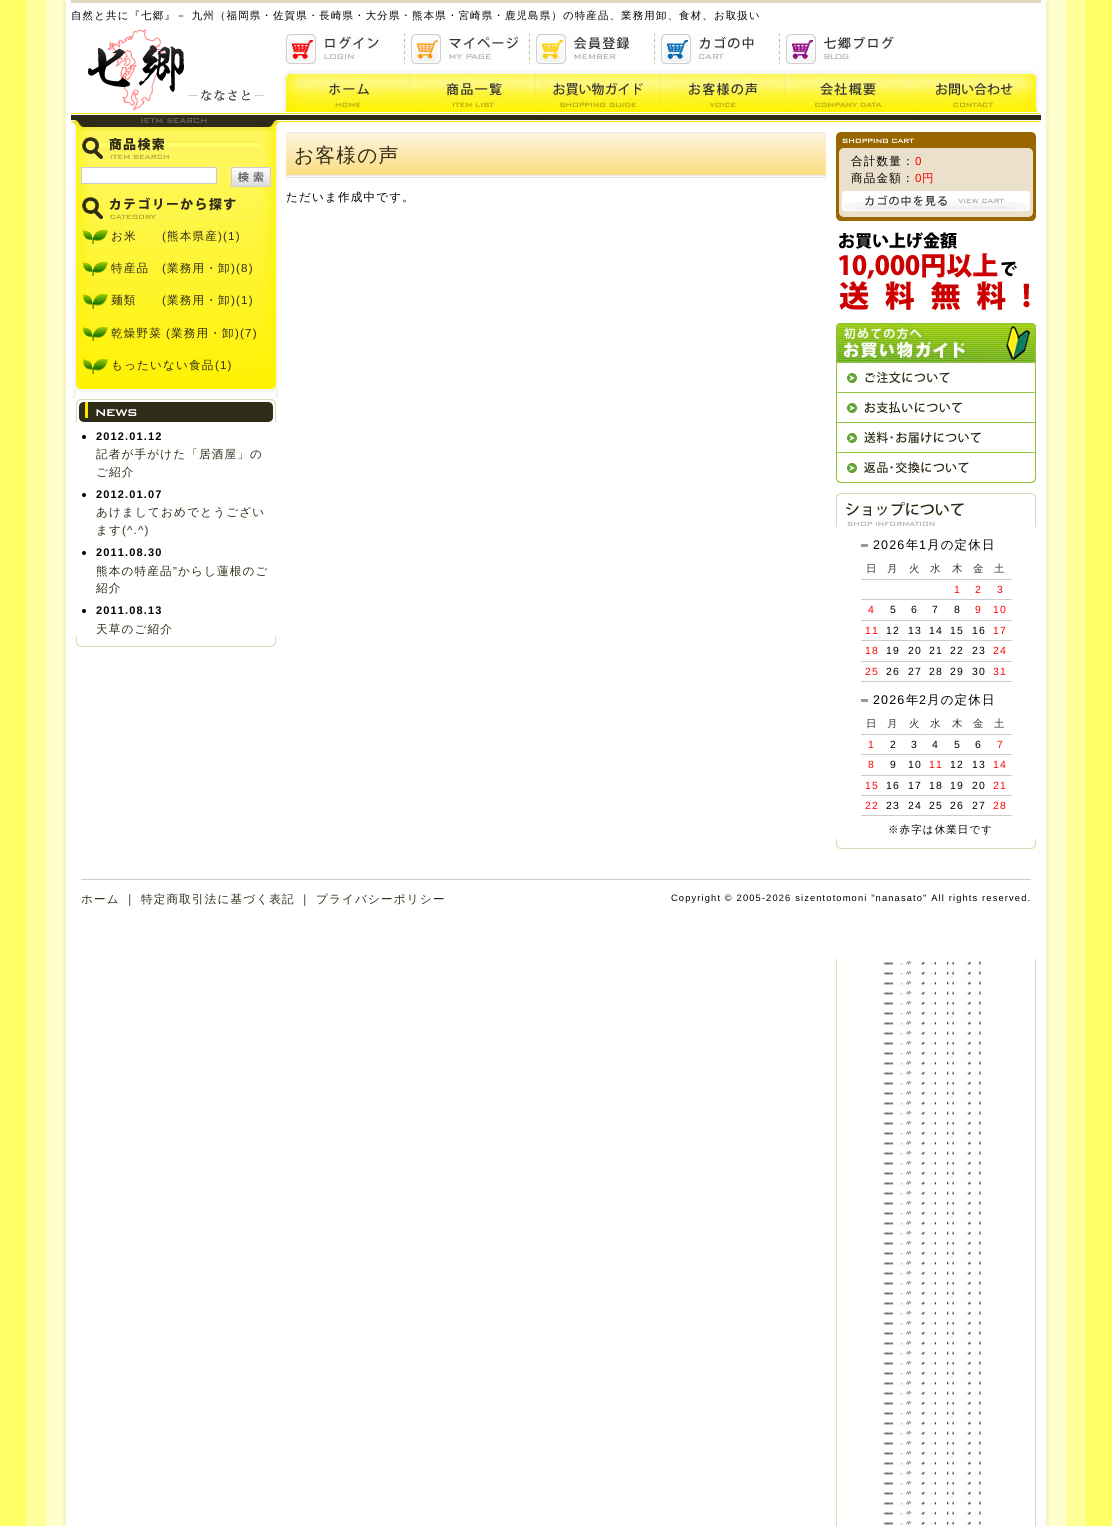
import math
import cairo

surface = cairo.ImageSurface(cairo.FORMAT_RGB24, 1112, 1526)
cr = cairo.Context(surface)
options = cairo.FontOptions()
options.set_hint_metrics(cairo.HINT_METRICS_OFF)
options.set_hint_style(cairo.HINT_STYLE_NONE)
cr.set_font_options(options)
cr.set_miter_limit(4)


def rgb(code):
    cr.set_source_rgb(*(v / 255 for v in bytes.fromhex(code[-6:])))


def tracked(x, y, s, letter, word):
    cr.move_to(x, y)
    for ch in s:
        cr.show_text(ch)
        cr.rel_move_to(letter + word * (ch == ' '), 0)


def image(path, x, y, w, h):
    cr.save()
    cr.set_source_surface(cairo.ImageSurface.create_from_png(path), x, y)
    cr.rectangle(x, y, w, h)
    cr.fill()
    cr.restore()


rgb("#ffff66")
cr.paint()
image("img/1.png", 26, 0, 1060, 1526)
for x, y, w, h, color in [
    (834, 3, 205, 110, "#ffffff"),
    (71, 0, 970, 3, "#dcd7b8"),
    (71, 113, 970, 1, "#ffe100"),
]:
    rgb(color)
    cr.rectangle(x, y, w, h)
    cr.fill()
image("img/2.png", 88, 29, 176, 82)
image("img/3.png", 282, 34, 124, 30)
image("img/4.png", 407, 34, 124, 30)
image("img/5.png", 532, 34, 124, 30)
image("img/6.png", 657, 34, 124, 30)
image("img/7.png", 782, 34, 119, 30)
image("img/8.png", 281, 69, 130, 44)
image("img/9.png", 411, 69, 125, 44)
image("img/10.png", 536, 69, 125, 44)
image("img/11.png", 661, 69, 125, 44)
image("img/12.png", 786, 69, 125, 44)
image("img/13.png", 911, 69, 128, 44)
rgb("#ffffff")
cr.rectangle(834, 114, 205, 765)
cr.fill()
image("img/14.png", 281, 115, 760, 7)
image("img/15.png", 71, 114, 210, 18)
image("img/16.png", 71, 132, 208, 267)
image("img/17.png", 75, 132, 202, 267)
image("img/18.png", 76, 137, 200, 25)
cr.rectangle(81.5, 167.5, 135, 16)
cr.fill_preserve()
rgb("#cccccc")
cr.set_line_width(1)
cr.stroke()
image("img/19.png", 231, 167, 40, 20)
image("img/20.png", 76, 197, 200, 25)
image("img/21.png", 76, 379, 200, 20)
image("img/22.png", 83, 230, 25, 14)
image("img/23.png", 83, 262, 25, 14)
image("img/24.png", 83, 294, 25, 15)
image("img/25.png", 83, 327, 25, 14)
image("img/26.png", 83, 359, 25, 15)
image("img/27.png", 76, 637, 200, 10)
image("img/28.png", 76, 399, 200, 23)
rgb("#000000")
cr.arc(84, 437, 2, 0, 2 * math.pi)
cr.fill()
cr.arc(84, 495, 2, 0, 2 * math.pi)
cr.fill()
cr.arc(84, 553, 2, 0, 2 * math.pi)
cr.fill()
cr.arc(84, 611, 2, 0, 2 * math.pi)
cr.fill()
rgb("#fef3d8")
cr.rectangle(286, 133, 540, 6)
cr.fill()
image("img/29.png", 286, 139, 540, 39)
rgb("#ebeced")
cr.rectangle(286, 132, 540, 1)
cr.fill()
image("img/30.png", 836, 211, 200, 10)
image("img/31.png", 836, 152, 200, 59)
image("img/32.png", 836, 132, 200, 20)
image("img/33.png", 842, 191, 188, 20)
image("img/34.png", 839, 232, 191, 78)
image("img/35.png", 836, 323, 200, 40)
image("img/36.png", 836, 363, 200, 30)
image("img/37.png", 836, 393, 200, 30)
image("img/38.png", 836, 423, 200, 30)
image("img/39.png", 836, 453, 200, 30)
image("img/40.png", 836, 839, 200, 10)
image("img/41.png", 836, 493, 200, 34)
for x, y, w, h, color in [
    (861, 544, 7, 3, "#999999"),
    (861, 579, 151, 1, "#cccccc"),
    (861, 599, 151, 1, "#cccccc"),
    (861, 620, 151, 1, "#cccccc"),
    (861, 640, 151, 1, "#cccccc"),
    (861, 661, 151, 1, "#cccccc"),
    (861, 681, 151, 1, "#cccccc"),
    (861, 699, 7, 3, "#999999"),
    (861, 734, 151, 1, "#cccccc"),
    (861, 754, 151, 1, "#cccccc"),
    (861, 775, 151, 1, "#cccccc"),
    (861, 795, 151, 1, "#cccccc"),
    (861, 815, 151, 1, "#cccccc"),
    (834, 879, 212, 80, "#ffffff"),
    (81, 879, 950, 1, "#cccccc"),
]:
    rgb(color)
    cr.rectangle(x, y, w, h)
    cr.fill()
cr.select_font_face("WenQuanYi Zen Hei Medium")
cr.set_font_size(10.45)
rgb("#000000")
tracked(71, 19, "自然と共に『七郷』－ 九州（福岡県・佐賀県・長崎県・大分県・熊本県・宮崎県・鹿児島県）の特産品、業務用卸、食材、お取扱い", 1.15, 0)
cr.set_font_size(11.6)
rgb("#2f2c17")
tracked(111, 240, "お米", 1.15, 0)
cr.select_font_face("Liberation Sans")
tracked(162, 240, "(", 1.15, 0)
cr.select_font_face("WenQuanYi Zen Hei Medium")
tracked(167, 240, "熊本県産", 1.15, 0)
cr.select_font_face("Liberation Sans")
tracked(218, 240, ")(1)", 1.15, 0)
cr.select_font_face("WenQuanYi Zen Hei Medium")
tracked(111, 272, "特産品", 1.15, 0)
cr.select_font_face("Liberation Sans")
tracked(162, 272, "(", 1.15, 0)
cr.select_font_face("WenQuanYi Zen Hei Medium")
tracked(167, 272, "業務用・卸", 1.15, 0)
cr.select_font_face("Liberation Sans")
tracked(231, 272, ")(8)", 1.15, 0)
cr.select_font_face("WenQuanYi Zen Hei Medium")
tracked(111, 304, "麺類", 1.15, 0)
cr.select_font_face("Liberation Sans")
tracked(162, 304, "(", 1.15, 0)
cr.select_font_face("WenQuanYi Zen Hei Medium")
tracked(167, 304, "業務用・卸", 1.15, 0)
cr.select_font_face("Liberation Sans")
tracked(231, 304, ")(1)", 1.15, 0)
cr.select_font_face("WenQuanYi Zen Hei Medium")
tracked(111, 337, "乾燥野菜", 1.15, 0)
cr.select_font_face("Liberation Sans")
tracked(166, 337, "(", 1.15, 0)
cr.select_font_face("WenQuanYi Zen Hei Medium")
tracked(171, 337, "業務用・卸", 1.15, 0)
cr.select_font_face("Liberation Sans")
tracked(235, 337, ")(7)", 1.15, 0)
cr.select_font_face("WenQuanYi Zen Hei Medium")
tracked(111, 369, "もったいない食品", 1.15, 0)
cr.select_font_face("Liberation Sans")
tracked(215, 369, "(1)", 1.15, 0)
cr.select_font_face("Liberation Sans", cairo.FONT_SLANT_NORMAL, cairo.FONT_WEIGHT_BOLD)
cr.set_font_size(11)
rgb("#000000")
tracked(96, 440, "2012.01.12", 1.15, 0)
cr.select_font_face("WenQuanYi Zen Hei Medium")
cr.set_font_size(11.6)
rgb("#2f2c17")
tracked(96, 458, "記者が手がけた「居酒屋」の", 1.15, 0)
tracked(96, 476, "ご紹介", 1.15, 0)
cr.select_font_face("Liberation Sans", cairo.FONT_SLANT_NORMAL, cairo.FONT_WEIGHT_BOLD)
cr.set_font_size(11)
rgb("#000000")
tracked(96, 498, "2012.01.07", 1.15, 0)
cr.select_font_face("WenQuanYi Zen Hei Medium")
cr.set_font_size(11.6)
rgb("#2f2c17")
tracked(96, 516, "あけましておめでとうござい", 1.15, 0)
tracked(96, 534, "ます", 1.15, 0)
cr.select_font_face("Liberation Sans")
tracked(122, 534, "(^.^)", 1.15, 0)
cr.select_font_face("Liberation Sans", cairo.FONT_SLANT_NORMAL, cairo.FONT_WEIGHT_BOLD)
cr.set_font_size(11)
rgb("#000000")
tracked(96, 556, "2011.08.30", 1.15, 0)
cr.select_font_face("WenQuanYi Zen Hei Medium")
cr.set_font_size(11.6)
rgb("#2f2c17")
tracked(96, 575, "熊本の特産品", 1.15, 0)
cr.select_font_face("Liberation Sans")
tracked(173, 575, "”", 1.15, 0)
cr.select_font_face("WenQuanYi Zen Hei Medium")
tracked(178, 575, "からし蓮根のご", 1.15, 0)
tracked(96, 592, "紹介", 1.15, 0)
cr.select_font_face("Liberation Sans", cairo.FONT_SLANT_NORMAL, cairo.FONT_WEIGHT_BOLD)
cr.set_font_size(11)
rgb("#000000")
tracked(96, 614, "2011.08.13", 1.15, 0)
cr.select_font_face("WenQuanYi Zen Hei Medium")
cr.set_font_size(11.6)
rgb("#2f2c17")
tracked(96, 633, "天草のご紹介", 1.15, 0)
cr.set_font_size(19.75)
tracked(294, 162, "お客様の声", 1.15, 0)
cr.set_font_size(11.6)
rgb("#000000")
tracked(286, 201, "ただいま作成中です。", 1.15, 0)
tracked(851, 165, "合計数量：", 1.15, 0)
cr.select_font_face("Liberation Sans")
rgb("#ff0000")
tracked(915, 165, "0", 1.15, 0)
cr.select_font_face("WenQuanYi Zen Hei Medium")
rgb("#000000")
tracked(851, 182, "商品金額：", 1.15, 0)
cr.select_font_face("Liberation Sans")
rgb("#ff0000")
tracked(915, 182, "0", 1.15, 0)
cr.select_font_face("WenQuanYi Zen Hei Medium")
tracked(922, 182, "円", 1.15, 0)
cr.select_font_face("Liberation Sans")
cr.set_font_size(12.5)
rgb("#000000")
tracked(873, 549, "2026", 1.15, 0)
cr.select_font_face("WenQuanYi Zen Hei Medium")
tracked(906, 549, "年", 1.15, 0)
cr.select_font_face("Liberation Sans")
tracked(919, 549, "1", 1.15, 0)
cr.select_font_face("WenQuanYi Zen Hei Medium")
tracked(927, 549, "月の定休日", 1.15, 0)
cr.set_font_size(10.45)
rgb("#333333")
for x, y, s in [
    (866, 572, "日"),
    (887, 572, "月"),
    (909, 572, "火"),
    (930, 572, "水"),
    (952, 572, "木"),
    (973, 572, "金"),
    (994, 572, "土"),
]:
    tracked(x, y, s, 1.15, 0)
cr.select_font_face("Liberation Sans")
rgb("#ff0000")
for x, y, s in [
    (954, 593, "1"),
    (975, 593, "2"),
    (997, 593, "3"),
    (868, 613, "4"),
]:
    tracked(x, y, s, 1.15, 0)
rgb("#000000")
for x, y, s in [
    (890, 613, "5"),
    (911, 613, "6"),
    (932, 613, "7"),
    (954, 613, "8"),
]:
    tracked(x, y, s, 1.15, 0)
rgb("#ff0000")
for x, y, s in [
    (975, 613, "9"),
    (993, 613, "10"),
    (865, 634, "11"),
]:
    tracked(x, y, s, 1.15, 0)
rgb("#000000")
for x, y, s in [
    (886, 634, "12"),
    (908, 634, "13"),
    (929, 634, "14"),
    (950, 634, "15"),
    (972, 634, "16"),
]:
    tracked(x, y, s, 1.15, 0)
rgb("#ff0000")
tracked(993, 634, "17", 1.15, 0)
tracked(865, 654, "18", 1.15, 0)
rgb("#000000")
for x, y, s in [
    (886, 654, "19"),
    (908, 654, "20"),
    (929, 654, "21"),
    (950, 654, "22"),
    (972, 654, "23"),
]:
    tracked(x, y, s, 1.15, 0)
rgb("#ff0000")
tracked(993, 654, "24", 1.15, 0)
tracked(865, 675, "25", 1.15, 0)
rgb("#000000")
for x, y, s in [
    (886, 675, "26"),
    (908, 675, "27"),
    (929, 675, "28"),
    (950, 675, "29"),
    (972, 675, "30"),
]:
    tracked(x, y, s, 1.15, 0)
rgb("#ff0000")
tracked(993, 675, "31", 1.15, 0)
cr.set_font_size(12.5)
rgb("#000000")
tracked(873, 704, "2026", 1.15, 0)
cr.select_font_face("WenQuanYi Zen Hei Medium")
tracked(906, 704, "年", 1.15, 0)
cr.select_font_face("Liberation Sans")
tracked(919, 704, "2", 1.15, 0)
cr.select_font_face("WenQuanYi Zen Hei Medium")
tracked(927, 704, "月の定休日", 1.15, 0)
cr.set_font_size(10.45)
rgb("#333333")
for x, y, s in [
    (866, 727, "日"),
    (887, 727, "月"),
    (909, 727, "火"),
    (930, 727, "水"),
    (952, 727, "木"),
    (973, 727, "金"),
    (994, 727, "土"),
]:
    tracked(x, y, s, 1.15, 0)
cr.select_font_face("Liberation Sans")
rgb("#ff0000")
tracked(868, 748, "1", 1.15, 0)
rgb("#000000")
for x, y, s in [
    (890, 748, "2"),
    (911, 748, "3"),
    (932, 748, "4"),
    (954, 748, "5"),
    (975, 748, "6"),
]:
    tracked(x, y, s, 1.15, 0)
rgb("#ff0000")
tracked(997, 748, "7", 1.15, 0)
tracked(868, 768, "8", 1.15, 0)
rgb("#000000")
tracked(890, 768, "9", 1.15, 0)
tracked(908, 768, "10", 1.15, 0)
rgb("#ff0000")
tracked(929, 768, "11", 1.15, 0)
rgb("#000000")
tracked(950, 768, "12", 1.15, 0)
tracked(972, 768, "13", 1.15, 0)
rgb("#ff0000")
tracked(993, 768, "14", 1.15, 0)
tracked(865, 789, "15", 1.15, 0)
rgb("#000000")
for x, y, s in [
    (886, 789, "16"),
    (908, 789, "17"),
    (929, 789, "18"),
    (950, 789, "19"),
    (972, 789, "20"),
]:
    tracked(x, y, s, 1.15, 0)
rgb("#ff0000")
tracked(993, 789, "21", 1.15, 0)
tracked(865, 809, "22", 1.15, 0)
rgb("#000000")
for x, y, s in [
    (886, 809, "23"),
    (908, 809, "24"),
    (929, 809, "25"),
    (950, 809, "26"),
    (972, 809, "27"),
]:
    tracked(x, y, s, 1.15, 0)
rgb("#ff0000")
tracked(993, 809, "28", 1.15, 0)
cr.select_font_face("WenQuanYi Zen Hei Medium")
rgb("#000000")
tracked(888, 833, "※赤字は休業日です", 1.15, 0)
cr.set_font_size(11.6)
rgb("#2f2c17")
tracked(81, 903, "ホーム", 1.15, 0)
rgb("#000000")
tracked(124, 903, "｜", 1.15, 0)
rgb("#2f2c17")
tracked(141, 903, "特定商取引法に基づく表記", 1.15, 0)
rgb("#000000")
tracked(299, 903, "｜", 1.15, 0)
rgb("#2f2c17")
tracked(316, 903, "プライバシーポリシー", 1.15, 0)
cr.select_font_face("Liberation Sans")
cr.set_font_size(9.3)
rgb("#000000")
tracked(671, 901, "Copyright © 2005-2026 sizentotomoni \"nanasato\" All rights reserved.", 1.15, 0)
surface.write_to_png("page.png")
